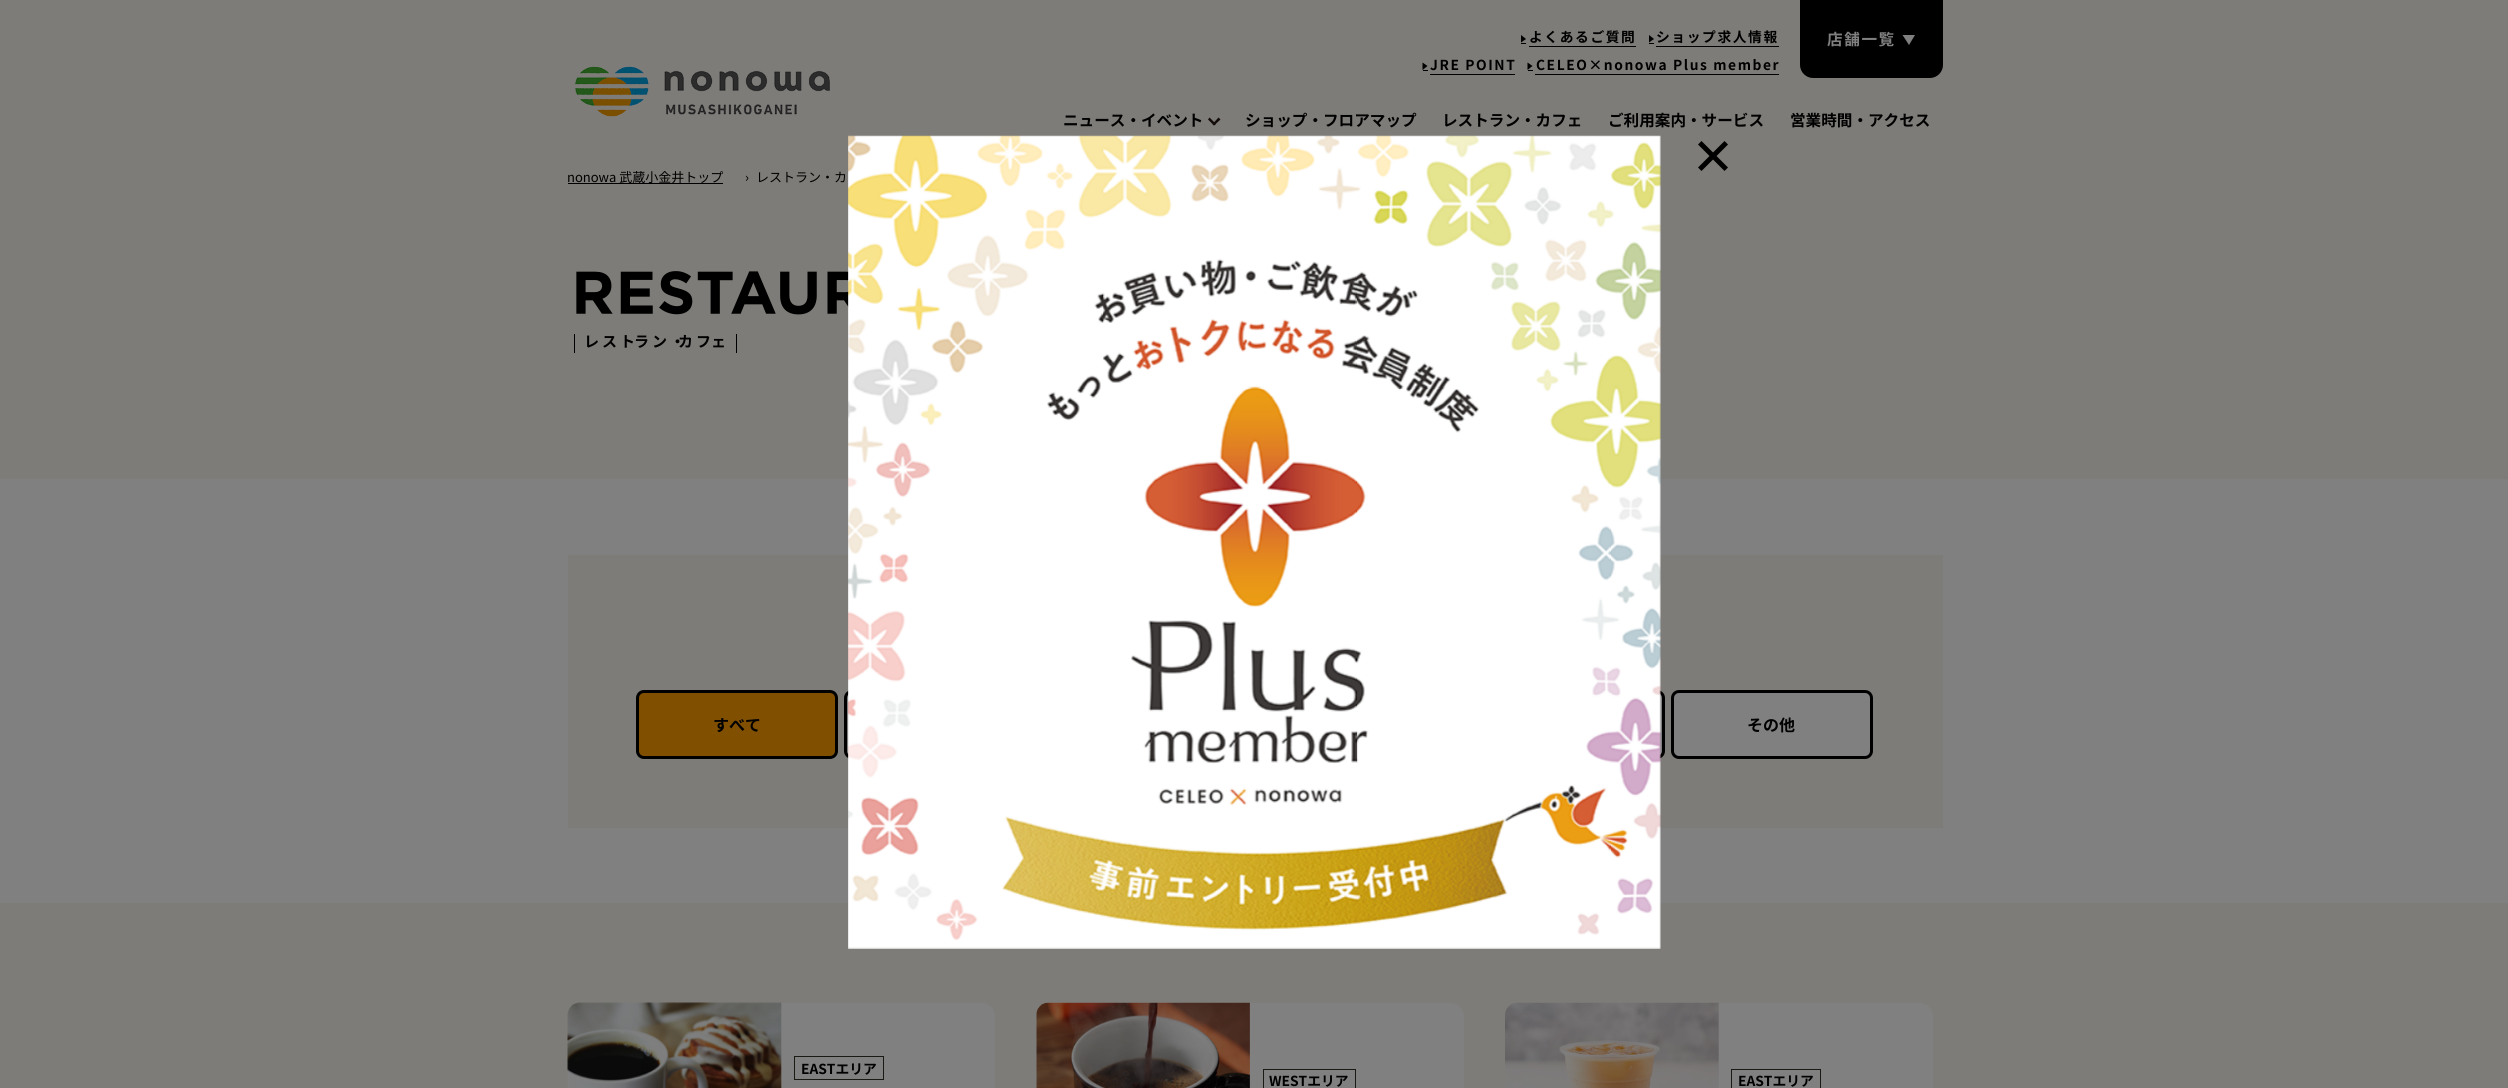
import math
import cairo

surface = cairo.ImageSurface(cairo.FORMAT_RGB24, 2508, 1088)
cr = cairo.Context(surface)
options = cairo.FontOptions()
options.set_hint_metrics(cairo.HINT_METRICS_OFF)
options.set_hint_style(cairo.HINT_STYLE_NONE)
cr.set_font_options(options)
cr.set_miter_limit(4)


def rgb(code):
    cr.set_source_rgb(*(v / 255 for v in bytes.fromhex(code[-6:])))


def tracked(x, y, s, letter, word):
    cr.move_to(x, y)
    for ch in s:
        cr.show_text(ch)
        cr.rel_move_to(letter + word * (ch == ' '), 0)


def rrect(x, y, w, h, r):
    cr.new_sub_path()
    for i, (u, v) in enumerate([(x + w - r, y + h - r), (x + r, y + h - r), (x + r, y + r), (x + w - r, y + r)]):
        cr.arc(u, v, r, i * math.pi / 2, (i + 1) * math.pi / 2)
    cr.close_path()


def image(path, x, y, w, h):
    cr.save()
    cr.set_source_surface(cairo.ImageSurface.create_from_png(path), x, y)
    cr.rectangle(x, y, w, h)
    cr.fill()
    cr.restore()


rgb("#7e7c78")
cr.paint()
image("img/1.png", 575, 66, 255, 51)
rgb("#000000")
cr.rectangle(1521, 43, 5, 1)
cr.fill()
cr.rectangle(1529, 46, 107, 1)
cr.fill()
cr.new_path()
cr.move_to(1521, 42.5)
cr.line_to(1521, 35)
cr.line_to(1526, 39)
cr.close_path()
cr.fill()
cr.rectangle(1649, 43, 5, 1)
cr.fill()
cr.rectangle(1656, 46, 123, 1)
cr.fill()
cr.new_path()
cr.move_to(1649, 42.5)
cr.line_to(1649, 35)
cr.line_to(1654, 39)
cr.close_path()
cr.fill()
cr.rectangle(1423, 70, 5, 1)
cr.fill()
cr.rectangle(1430, 74, 85, 1)
cr.fill()
cr.new_path()
cr.move_to(1422.5, 70)
cr.line_to(1422.5, 62.5)
cr.line_to(1427.5, 66)
cr.close_path()
cr.fill()
cr.rectangle(1528, 70, 5, 1)
cr.fill()
cr.rectangle(1535, 74, 244, 1)
cr.fill()
cr.new_path()
cr.move_to(1527.5, 70)
cr.line_to(1527.5, 62.5)
cr.line_to(1532.5, 66)
cr.close_path()
cr.fill()
cr.new_path()
cr.move_to(1800, 0)
cr.line_to(1943, 0)
cr.line_to(1943, 65)
cr.curve_to(1943, 72, 1937, 78, 1930, 78)
cr.line_to(1813, 78)
cr.curve_to(1806, 78, 1800, 72, 1800, 65)
cr.close_path()
cr.fill()
rgb("#808080")
cr.new_path()
cr.move_to(1902.5, 35)
cr.line_to(1915, 35)
cr.line_to(1909, 45)
cr.close_path()
cr.fill()
rgb("#120c0b")
cr.new_path()
cr.move_to(1218.5, 117.5)
cr.line_to(1220.5, 119.5)
cr.line_to(1214, 125.5)
cr.line_to(1212.5, 124)
cr.close_path()
cr.fill()
cr.new_path()
cr.move_to(1209.5, 117.5)
cr.line_to(1216, 124)
cr.line_to(1214, 125.5)
cr.line_to(1208, 119.5)
cr.close_path()
cr.fill()
image("img/3.png", 576, 271, 273, 44)
rgb("#808080")
cr.rectangle(0, 479, 2508, 424)
cr.fill()
rgb("#7e7c78")
cr.rectangle(568, 555, 1375, 273)
cr.fill()
rgb("#808080")
rrect(845.5, 691.5, 197, 66, 6.5)
cr.fill_preserve()
rgb("#000000")
cr.set_line_width(3)
cr.stroke()
rgb("#808080")
rrect(1466.5, 691.5, 197, 66, 6.5)
cr.fill_preserve()
rgb("#000000")
cr.stroke()
image("img/2.png", 848, 135, 813, 814)
cr.new_path()
cr.move_to(1701.5, 141)
cr.line_to(1728, 167.5)
cr.line_to(1724.5, 171)
cr.line_to(1698, 144.5)
cr.close_path()
cr.fill()
cr.new_path()
cr.move_to(1698, 167.5)
cr.line_to(1724.5, 141)
cr.line_to(1728, 144.5)
cr.line_to(1701.5, 171)
cr.close_path()
cr.fill()
for x, y, w, h, color in [
    (568, 183, 155, 1, "#000000"),
    (574, 334, 1, 19, "#000000"),
    (736, 334, 1, 19, "#000000"),
]:
    rgb(color)
    cr.rectangle(x, y, w, h)
    cr.fill()
rgb("#805000")
rrect(637.5, 691.5, 199, 66, 6.5)
cr.fill_preserve()
rgb("#000000")
cr.stroke()
rgb("#808080")
rrect(1672.5, 691.5, 199, 66, 6.5)
cr.fill_preserve()
rgb("#000000")
cr.stroke()
rgb("#808080")
cr.new_path()
cr.move_to(581, 1003)
cr.line_to(982, 1003)
cr.curve_to(989, 1003, 995, 1009, 995, 1016)
cr.line_to(995, 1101)
cr.line_to(568, 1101)
cr.line_to(568, 1016)
cr.curve_to(568, 1009, 574, 1003, 581, 1003)
cr.close_path()
cr.fill()
image("img/4.png", 567, 1002, 215, 86)
cr.rectangle(794.5, 1056.5, 89, 23)
rgb("#1a1a14")
cr.set_line_width(1)
cr.stroke()
rgb("#808080")
cr.new_path()
cr.move_to(1049, 1003)
cr.line_to(1451, 1003)
cr.curve_to(1458, 1003, 1464, 1009, 1464, 1016)
cr.line_to(1464, 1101)
cr.line_to(1036, 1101)
cr.line_to(1036, 1016)
cr.curve_to(1036, 1009, 1042, 1003, 1049, 1003)
cr.close_path()
cr.fill()
image("img/5.png", 1036, 1002, 214, 86)
cr.rectangle(1263.5, 1069.5, 92, 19)
rgb("#1a1a14")
cr.stroke()
rgb("#808080")
cr.new_path()
cr.move_to(1518, 1003)
cr.line_to(1920, 1003)
cr.curve_to(1927, 1003, 1933, 1009, 1933, 1016)
cr.line_to(1933, 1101)
cr.line_to(1505, 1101)
cr.line_to(1505, 1016)
cr.curve_to(1505, 1009, 1511, 1003, 1518, 1003)
cr.close_path()
cr.fill()
image("img/6.png", 1505, 1002, 214, 86)
cr.rectangle(1731.5, 1069.5, 89, 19)
rgb("#1a1a14")
cr.stroke()
cr.select_font_face("Noto Sans JP", cairo.FONT_SLANT_NORMAL, cairo.FONT_WEIGHT_BOLD)
cr.set_font_size(13.75)
rgb("#000000")
for x, y, s in [
    (1529, 42, "よくあるご質問"),
    (1656, 42, "ショップ求人情報"),
    (1430, 70, "JRE POINT"),
    (1536, 70, "CELEO×nonowa Plus member"),
]:
    tracked(x, y, s, 1.6, 0)
cr.set_font_size(15.6)
rgb("#808080")
tracked(1827, 45, "店舗一覧", 1.6, 0)
rgb("#000000")
for x, y, s in [
    (1063, 126, "ニュース・イベント"),
    (1245, 126, "ショップ・フロアマップ"),
    (1442, 126, "レストラン・カフェ"),
    (1608, 126, "ご利用案内・サービス"),
    (1790, 126, "営業時間・アクセス"),
]:
    cr.move_to(x, y)
    cr.show_text(s)
cr.select_font_face("Noto Sans JP")
cr.set_font_size(13)
for x, y, s in [
    (567, 182, "nonowa 武蔵小金井トップ"),
    (745, 182, "›"),
    (756, 182, "レストラン・カ"),
]:
    cr.move_to(x, y)
    cr.show_text(s)
cr.select_font_face("Noto Sans JP", cairo.FONT_SLANT_NORMAL, cairo.FONT_WEIGHT_BOLD)
cr.set_font_size(15)
tracked(584, 347, "レスト", 3, 0)
tracked(634, 347, "ラン・", 3, 0)
tracked(678, 347, "カフ", 3, 0)
tracked(711, 347, "ェ", 3, 0)
cr.set_font_size(16)
cr.move_to(713, 731)
cr.show_text("すべて")
cr.move_to(1747, 731)
cr.show_text("その他")
cr.set_font_size(13.75)
for x, y, s in [
    (801, 1074, "EASTエリア"),
    (1269, 1086, "WESTエリア"),
    (1738, 1086, "EASTエリア"),
]:
    cr.move_to(x, y)
    cr.show_text(s)
surface.write_to_png("page.png")
